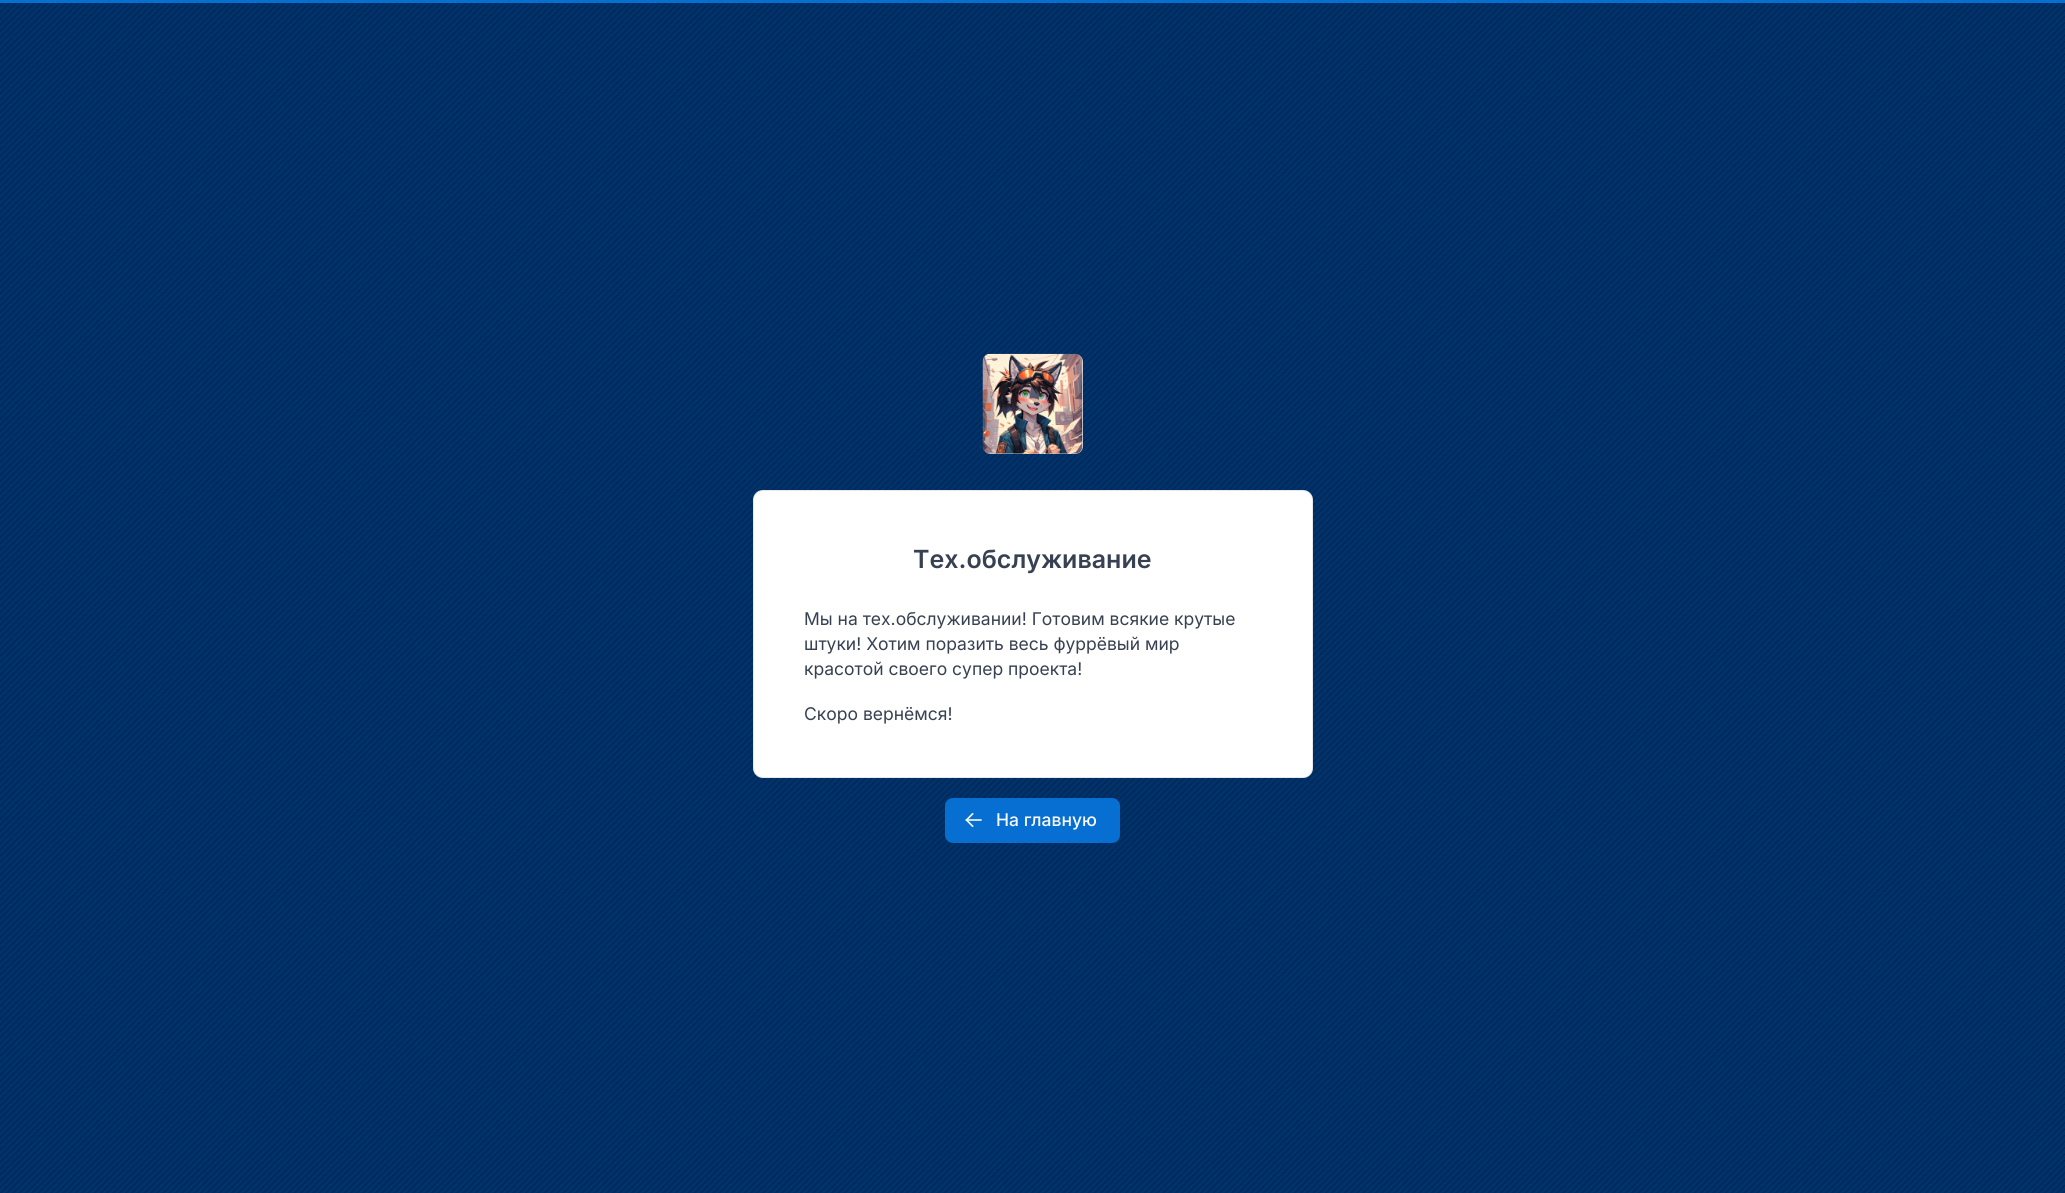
import math
import cairo

surface = cairo.ImageSurface(cairo.FORMAT_RGB24, 2065, 1193)
cr = cairo.Context(surface)
options = cairo.FontOptions()
options.set_hint_metrics(cairo.HINT_METRICS_OFF)
options.set_hint_style(cairo.HINT_STYLE_NONE)
cr.set_font_options(options)
cr.set_miter_limit(4)


def rgb(code):
    cr.set_source_rgb(*(v / 255 for v in bytes.fromhex(code[-6:])))


def rrect(x, y, w, h, r):
    cr.new_sub_path()
    for i, (u, v) in enumerate([(x + w - r, y + h - r), (x + r, y + h - r), (x + r, y + r), (x + w - r, y + r)]):
        cr.arc(u, v, r, i * math.pi / 2, (i + 1) * math.pi / 2)
    cr.close_path()


def image(path, x, y, w, h):
    cr.save()
    cr.set_source_surface(cairo.ImageSurface.create_from_png(path), x, y)
    cr.rectangle(x, y, w, h)
    cr.fill()
    cr.restore()


rgb("#ffffff")
cr.paint()
image("img/1.png", 0, 3, 2065, 1190)
rgb("#066fd1")
cr.rectangle(0, 0, 2065, 3)
cr.fill()
rgb("#f9fafb")
rrect(983, 354, 100, 100, 8)
cr.fill()
rrect(983.5, 354.5, 99, 99, 7.5)
cr.set_source_rgba(0.016, 0.125, 0.271, 0.1)
cr.set_line_width(1)
cr.stroke()
image("img/2.png", 982, 353, 101, 101)
rgb("#ffffff")
rrect(753, 490, 560, 288, 10)
cr.fill()
rrect(753.5, 490.5, 559, 287, 9.5)
cr.set_source_rgba(0.016, 0.125, 0.271, 0.1)
cr.stroke()
rgb("#066fd1")
rrect(945, 798, 175, 45, 8)
cr.fill()
image("img/3.png", 965, 813, 17, 14)
cr.select_font_face("Inter SemiBold")
cr.set_font_size(25)
rgb("#374151")
cr.move_to(913, 568)
cr.show_text("Тех.обслуживание")
cr.select_font_face("Inter")
cr.set_font_size(17.5)
for x, y, s in [
    (804, 625, "Мы на тех.обслуживании! Готовим всякие крутые"),
    (804, 650, "штуки! Хотим поразить весь фуррёвый мир"),
    (804, 675, "красотой своего супер проекта!"),
    (804, 720, "Скоро вернёмся!"),
]:
    cr.move_to(x, y)
    cr.show_text(s)
cr.select_font_face("Inter Medium")
rgb("#f9fafb")
cr.move_to(996, 826)
cr.show_text("На главную")
surface.write_to_png("page.png")
